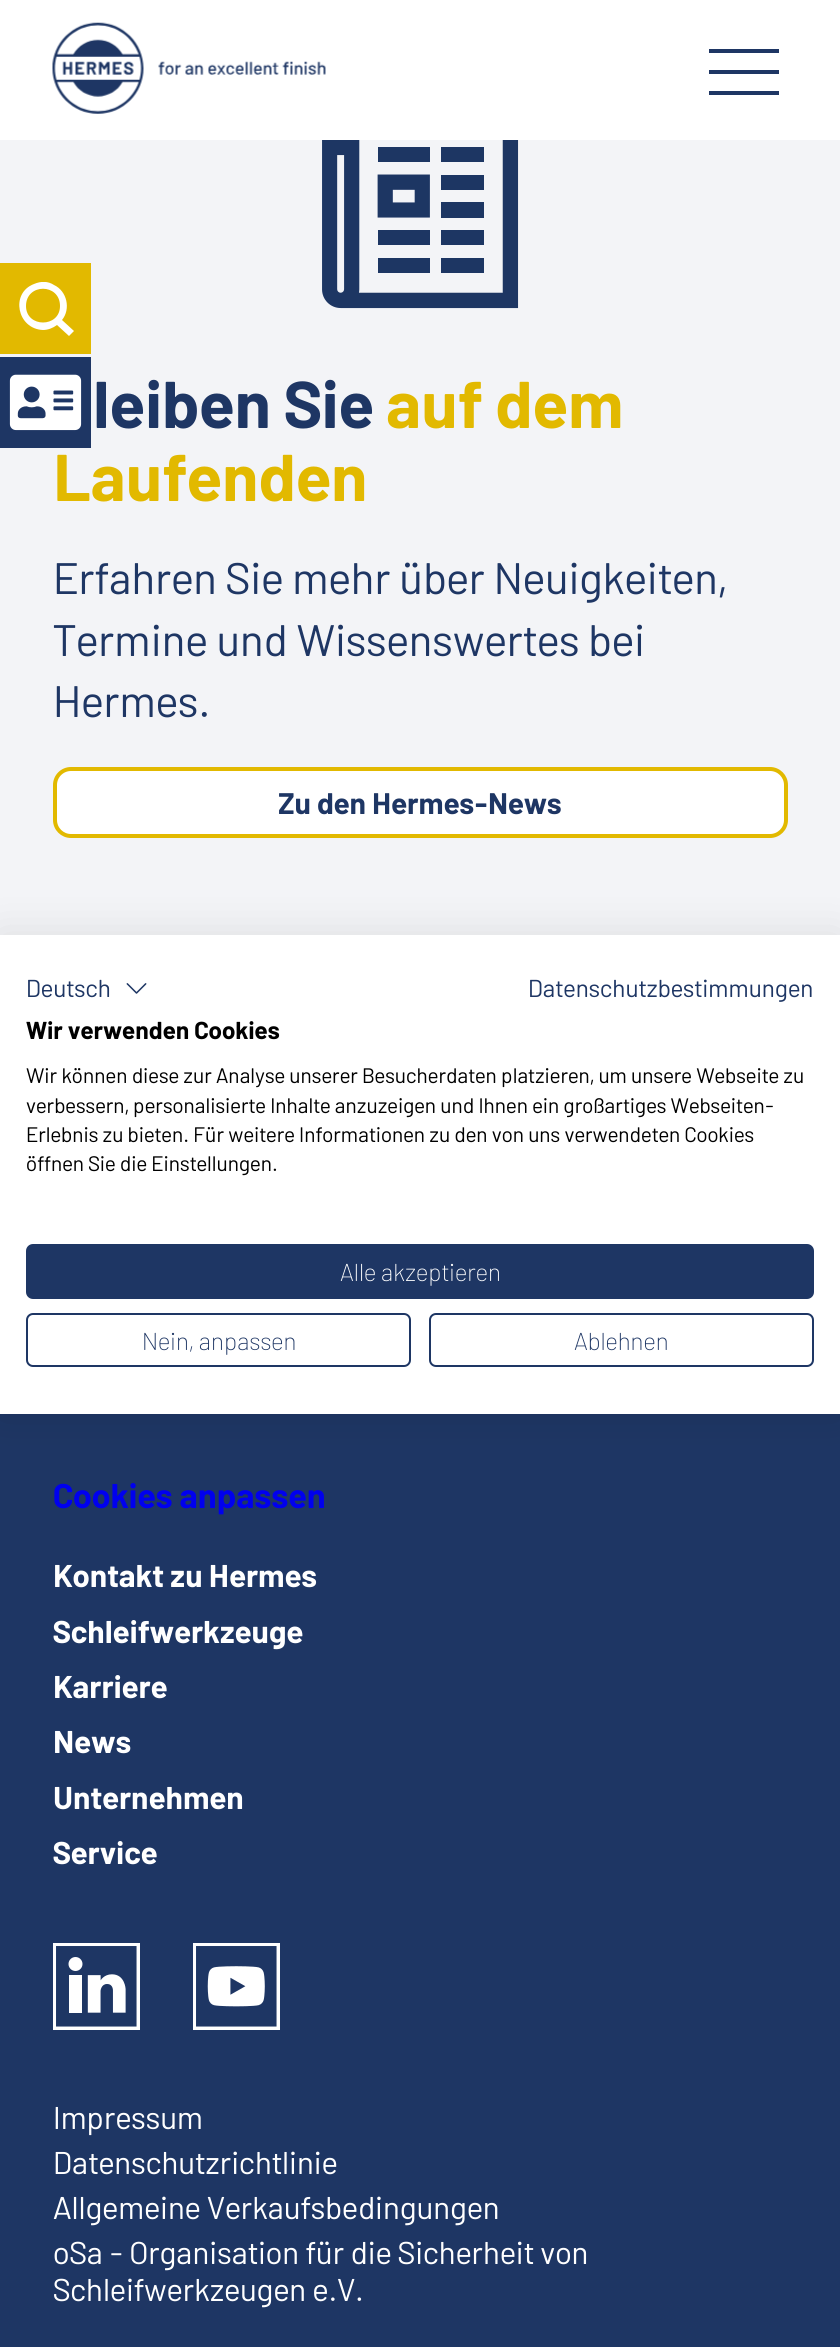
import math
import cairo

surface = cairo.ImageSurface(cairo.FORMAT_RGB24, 840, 2347)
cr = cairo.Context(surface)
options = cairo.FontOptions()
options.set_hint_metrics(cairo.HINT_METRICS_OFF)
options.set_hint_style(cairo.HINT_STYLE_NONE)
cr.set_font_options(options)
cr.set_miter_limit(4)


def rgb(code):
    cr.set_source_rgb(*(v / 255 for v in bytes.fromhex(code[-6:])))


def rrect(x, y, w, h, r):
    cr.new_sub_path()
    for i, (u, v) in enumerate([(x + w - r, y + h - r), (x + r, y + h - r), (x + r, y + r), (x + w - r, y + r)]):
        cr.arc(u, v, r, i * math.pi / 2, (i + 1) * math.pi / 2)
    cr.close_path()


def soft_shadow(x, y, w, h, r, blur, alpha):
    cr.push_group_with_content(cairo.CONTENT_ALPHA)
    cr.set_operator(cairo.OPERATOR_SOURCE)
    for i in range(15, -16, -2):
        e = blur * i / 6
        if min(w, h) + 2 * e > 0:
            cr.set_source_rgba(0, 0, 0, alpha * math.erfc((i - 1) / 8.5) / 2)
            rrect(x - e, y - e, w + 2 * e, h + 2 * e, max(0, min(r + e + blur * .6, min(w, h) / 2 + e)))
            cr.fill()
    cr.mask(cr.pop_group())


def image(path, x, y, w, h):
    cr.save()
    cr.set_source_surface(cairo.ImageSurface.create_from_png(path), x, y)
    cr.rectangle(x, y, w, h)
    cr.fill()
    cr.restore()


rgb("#1e3664")
cr.paint()
rgb("#ffffff")
cr.rectangle(0, 0, 840, 140)
cr.fill()
image("img/1.png", 52, 22, 274, 92)
for x, y, w, h, color in [
    (709, 49, 70, 4, "#1e3664"),
    (709, 70, 70, 4, "#1e3664"),
    (709, 91, 70, 4, "#1e3664"),
    (0, 140, 840, 795, "#f3f4f7"),
    (0, 263, 91, 91, "#e2b900"),
]:
    rgb(color)
    cr.rectangle(x, y, w, h)
    cr.fill()
cr.save()
cr.rectangle(19, 282, 55, 54)
cr.clip()
rgb("#ffffff")
cr.new_path()
cr.move_to(74, 331)
cr.line_to(62, 320)
cr.curve_to(71, 309, 67, 291, 54, 285)
cr.curve_to(48, 281, 41, 281, 34, 284)
cr.curve_to(10, 293, 17, 329, 43, 330)
cr.curve_to(48, 330, 53, 328, 57, 325)
cr.line_to(69, 336)
cr.close_path()
cr.move_to(26, 306)
cr.curve_to(26, 283, 60, 283, 60, 306)
cr.curve_to(60, 328, 26, 328, 26, 306)
cr.close_path()
cr.fill()
cr.restore()
rgb("#1e3664")
cr.rectangle(0, 357, 91, 91)
cr.fill()
image("img/2.png", 9, 374, 73, 57)
image("img/3.png", 322, 140, 197, 169)
rgb("#ffffff")
rrect(55, 769, 731, 67, 16)
cr.fill_preserve()
rgb("#e2b900")
cr.set_line_width(4)
cr.stroke()
rgb("#000000")
soft_shadow(0, 935, 840, 479, 0, 21, 0.1)
rgb("#ffffff")
cr.rectangle(0, 935, 840, 479)
cr.fill()
image("img/4.png", 126, 983, 21, 11)
rgb("#1e3664")
rrect(27, 1245, 786, 53, 6)
cr.fill_preserve()
cr.set_line_width(2)
cr.stroke()
rrect(27, 1314, 383, 52, 6)
cr.stroke()
rrect(430, 1314, 383, 52, 6)
cr.stroke()
image("img/5.png", 53, 1943, 87, 87)
image("img/6.png", 193, 1943, 87, 87)
cr.select_font_face("Barlow", cairo.FONT_SLANT_NORMAL, cairo.FONT_WEIGHT_BOLD)
cr.set_font_size(66)
cr.move_to(93, 428)
cr.show_text("leiben Sie")
rgb("#e2b900")
cr.move_to(386, 428)
cr.show_text("auf dem")
cr.move_to(53, 501)
cr.show_text("Laufenden")
cr.select_font_face("Barlow")
cr.set_font_size(44.1)
rgb("#1e3664")
for x, y, s in [
    (53, 594, "Erfahren Sie mehr über Neuigkeiten,"),
    (53, 656, "Termine und Wissenswertes bei"),
    (53, 717, "Hermes."),
]:
    cr.move_to(x, y)
    cr.show_text(s)
cr.select_font_face("Barlow", cairo.FONT_SLANT_NORMAL, cairo.FONT_WEIGHT_BOLD)
cr.set_font_size(29.75)
cr.move_to(278, 814)
cr.show_text("Zu den Hermes-News")
cr.select_font_face("Barlow")
cr.set_font_size(24.5)
cr.move_to(26, 997)
cr.show_text("Deutsch")
cr.move_to(528, 997)
cr.show_text("Datenschutzbestimmungen")
cr.select_font_face("Barlow", cairo.FONT_SLANT_NORMAL, cairo.FONT_WEIGHT_BOLD)
rgb("#000000")
cr.move_to(26, 1039)
cr.show_text("Wir verwenden Cookies")
cr.select_font_face("Barlow")
cr.set_font_size(21)
for x, y, s in [
    (26, 1083, "Wir können diese zur Analyse unserer Besucherdaten platzieren, um unsere Webseite zu"),
    (26, 1113, "verbessern, personalisierte Inhalte anzuzeigen und Ihnen ein großartiges Webseiten-"),
    (26, 1142, "Erlebnis zu bieten. Für weitere Informationen zu den von uns verwendeten Cookies"),
    (26, 1171, "öffnen Sie die Einstellungen."),
]:
    cr.move_to(x, y)
    cr.show_text(s)
cr.select_font_face("Barlow ExtraLight")
cr.set_font_size(24.5)
rgb("#ffffff")
cr.move_to(340, 1281)
cr.show_text("Alle akzeptieren")
rgb("#1e3664")
cr.move_to(142, 1350)
cr.show_text("Nein, anpassen")
cr.move_to(574, 1350)
cr.show_text("Ablehnen")
cr.select_font_face("Barlow", cairo.FONT_SLANT_NORMAL, cairo.FONT_WEIGHT_BOLD)
cr.set_font_size(34.25)
rgb("#0000ee")
cr.move_to(53, 1508)
cr.show_text("Cookies anpassen")
cr.set_font_size(31.5)
rgb("#ffffff")
for x, y, s in [
    (53, 1587, "Kontakt zu Hermes"),
    (53, 1643, "Schleifwerkzeuge"),
    (53, 1698, "Karriere"),
    (53, 1753, "News"),
    (53, 1809, "Unternehmen"),
    (53, 1864, "Service"),
]:
    cr.move_to(x, y)
    cr.show_text(s)
cr.select_font_face("Barlow")
for x, y, s in [
    (53, 2129, "Impressum"),
    (53, 2174, "Datenschutzrichtlinie"),
    (53, 2219, "Allgemeine Verkaufsbedingungen"),
    (53, 2264, "oSa - Organisation für die Sicherheit von"),
    (53, 2301, "Schleifwerkzeugen e.V."),
]:
    cr.move_to(x, y)
    cr.show_text(s)
surface.write_to_png("page.png")
